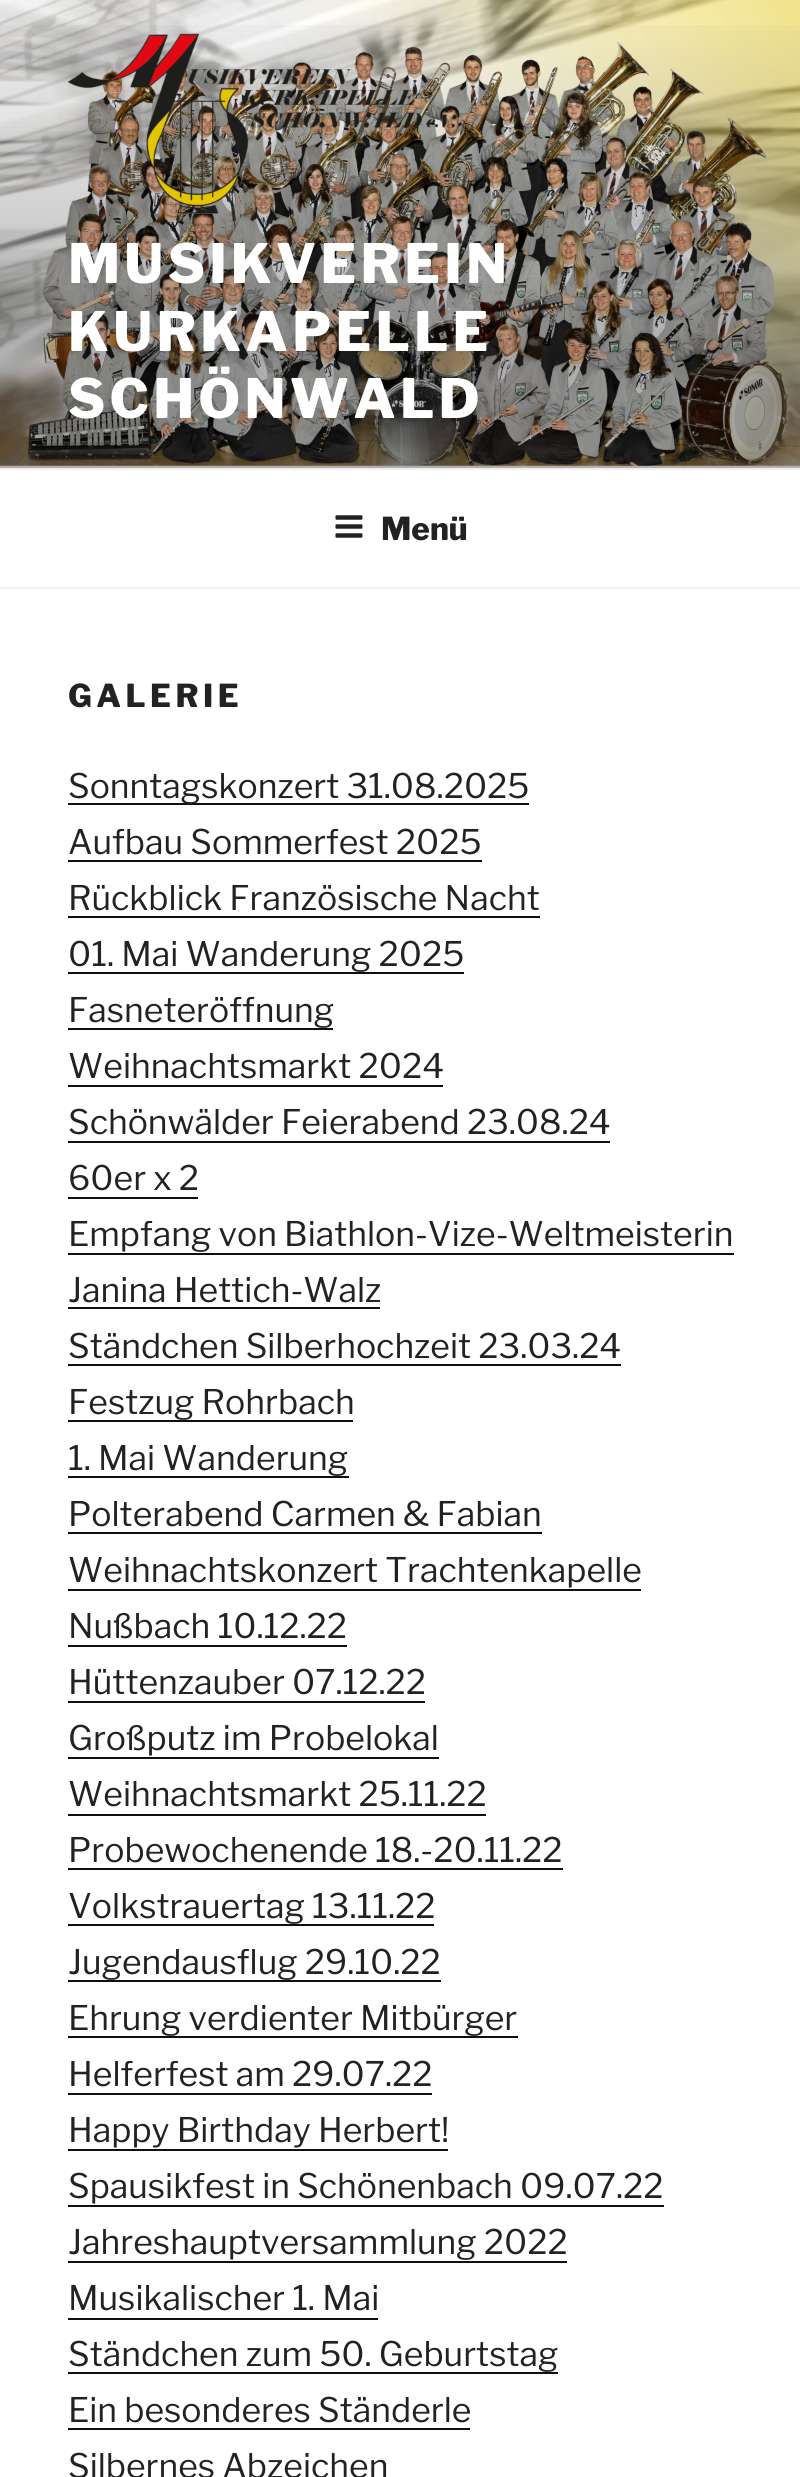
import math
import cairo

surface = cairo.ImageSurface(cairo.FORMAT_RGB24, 800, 2477)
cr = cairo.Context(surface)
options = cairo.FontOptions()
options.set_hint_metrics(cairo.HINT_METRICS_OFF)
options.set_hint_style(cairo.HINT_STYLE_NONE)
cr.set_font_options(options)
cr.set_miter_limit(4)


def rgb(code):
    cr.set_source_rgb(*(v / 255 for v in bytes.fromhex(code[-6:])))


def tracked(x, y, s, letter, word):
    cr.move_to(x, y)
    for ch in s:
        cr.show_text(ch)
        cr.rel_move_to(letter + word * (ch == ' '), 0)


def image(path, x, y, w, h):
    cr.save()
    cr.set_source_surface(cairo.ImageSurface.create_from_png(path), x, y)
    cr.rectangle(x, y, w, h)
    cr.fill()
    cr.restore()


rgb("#ffffff")
cr.paint()
rgb("#fafafa")
cr.rectangle(0, 465, 800, 3)
cr.fill()
image("img/1.png", 0, 0, 800, 466)
gradient = cairo.LinearGradient(401, 0, 401, 468)
gradient.add_color_stop_rgba(0, 0, 0, 0, 0)
gradient.add_color_stop_rgba(0.75, 0, 0, 0, 0.3)
gradient.add_color_stop_rgba(1, 0, 0, 0, 0.3)
cr.set_source(gradient)
cr.rectangle(0, 25, 800, 443)
cr.fill()
image("img/2.png", 67, 33, 390, 181)
rgb("#eeeeee")
cr.rectangle(0, 468, 800, 2)
cr.fill()
cr.rectangle(0, 587, 800, 2)
cr.fill()
image("img/3.png", 335, 515, 28, 23)
for x, y, w, h, color in [
    (68, 803, 461, 2, "#0f0f0f"),
    (68, 860, 414, 2, "#0f0f0f"),
    (68, 916, 472, 2, "#0f0f0f"),
    (68, 972, 396, 2, "#0f0f0f"),
    (68, 1028, 265, 2, "#0f0f0f"),
    (68, 1085, 375, 2, "#0f0f0f"),
    (68, 1141, 542, 2, "#0f0f0f"),
    (68, 1197, 130, 2, "#0f0f0f"),
    (68, 1253, 666, 2, "#0f0f0f"),
    (68, 1307, 312, 2, "#0f0f0f"),
    (68, 1364, 553, 2, "#0f0f0f"),
    (68, 1420, 285, 2, "#0f0f0f"),
    (68, 1476, 281, 2, "#0f0f0f"),
    (68, 1532, 474, 2, "#0f0f0f"),
    (68, 1589, 573, 2, "#0f0f0f"),
    (68, 1645, 279, 2, "#0f0f0f"),
    (68, 1701, 357, 2, "#0f0f0f"),
    (68, 1757, 371, 2, "#0f0f0f"),
    (68, 1814, 418, 2, "#0f0f0f"),
    (68, 1868, 495, 2, "#0f0f0f"),
    (68, 1924, 366, 2, "#0f0f0f"),
    (68, 1980, 373, 2, "#0f0f0f"),
    (68, 2036, 450, 2, "#0f0f0f"),
    (68, 2093, 364, 2, "#0f0f0f"),
    (68, 2149, 380, 2, "#0f0f0f"),
    (68, 2205, 596, 2, "#0f0f0f"),
    (68, 2261, 499, 2, "#0f0f0f"),
    (68, 2318, 310, 2, "#0f0f0f"),
    (68, 2372, 490, 2, "#0f0f0f"),
    (68, 2428, 402, 2, "#0f0f0f"),
]:
    rgb(color)
    cr.rectangle(x, y, w, h)
    cr.fill()
cr.select_font_face("Libre Franklin Thin")
cr.set_font_size(54)
rgb("#ffffff")
for x, y, s in [
    (68, 283, "MUSIKVEREIN"),
    (68, 351, "KURKAPELLE"),
    (68, 418, "SCHÖNWALD"),
]:
    tracked(x, y, s, 4.25, 0)
cr.set_font_size(31.5)
rgb("#222222")
cr.move_to(381, 540)
cr.show_text("Menü")
tracked(68, 707, "GALERIE", 4.5, 0)
cr.select_font_face("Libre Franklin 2 Thin")
cr.set_font_size(33.75)
for x, y, s in [
    (68, 798, "Sonntagskonzert 31.08.2025"),
    (68, 854, "Aufbau Sommerfest 2025"),
    (68, 910, "Rückblick Französische Nacht"),
    (68, 966, "01. Mai Wanderung 2025"),
    (68, 1022, "Fasneteröffnung"),
    (68, 1078, "Weihnachtsmarkt 2024"),
    (68, 1134, "Schönwälder Feierabend 23.08.24"),
    (68, 1190, "60er x 2"),
    (68, 1246, "Empfang von Biathlon-Vize-Weltmeisterin"),
    (68, 1302, "Janina Hettich-Walz"),
    (68, 1358, "Ständchen Silberhochzeit 23.03.24"),
    (68, 1414, "Festzug Rohrbach"),
    (68, 1470, "1. Mai Wanderung"),
    (68, 1526, "Polterabend Carmen & Fabian"),
    (68, 1582, "Weihnachtskonzert Trachtenkapelle"),
    (68, 1638, "Nußbach 10.12.22"),
    (68, 1694, "Hüttenzauber 07.12.22"),
    (68, 1750, "Großputz im Probelokal"),
    (68, 1806, "Weihnachtsmarkt 25.11.22"),
    (68, 1862, "Probewochenende 18.-20.11.22"),
    (68, 1918, "Volkstrauertag 13.11.22"),
    (68, 1974, "Jugendausflug 29.10.22"),
    (68, 2030, "Ehrung verdienter Mitbürger"),
    (68, 2086, "Helferfest am 29.07.22"),
    (68, 2142, "Happy Birthday Herbert!"),
    (68, 2198, "Spausikfest in Schönenbach 09.07.22"),
    (68, 2254, "Jahreshauptversammlung 2022"),
    (68, 2310, "Musikalischer 1. Mai"),
    (68, 2366, "Ständchen zum 50. Geburtstag"),
    (68, 2422, "Ein besonderes Ständerle"),
    (68, 2478, "Silbernes Abzeichen"),
]:
    cr.move_to(x, y)
    cr.show_text(s)
surface.write_to_png("page.png")
